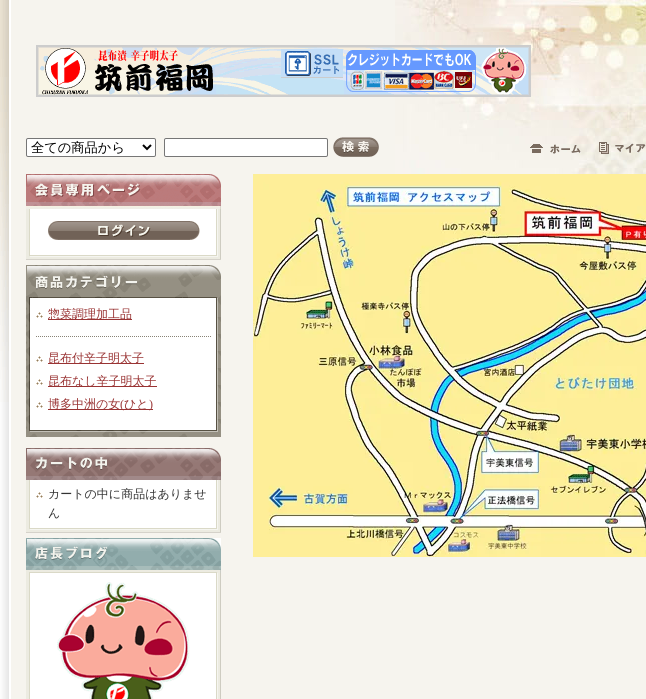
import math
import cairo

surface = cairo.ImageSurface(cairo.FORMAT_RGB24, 646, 699)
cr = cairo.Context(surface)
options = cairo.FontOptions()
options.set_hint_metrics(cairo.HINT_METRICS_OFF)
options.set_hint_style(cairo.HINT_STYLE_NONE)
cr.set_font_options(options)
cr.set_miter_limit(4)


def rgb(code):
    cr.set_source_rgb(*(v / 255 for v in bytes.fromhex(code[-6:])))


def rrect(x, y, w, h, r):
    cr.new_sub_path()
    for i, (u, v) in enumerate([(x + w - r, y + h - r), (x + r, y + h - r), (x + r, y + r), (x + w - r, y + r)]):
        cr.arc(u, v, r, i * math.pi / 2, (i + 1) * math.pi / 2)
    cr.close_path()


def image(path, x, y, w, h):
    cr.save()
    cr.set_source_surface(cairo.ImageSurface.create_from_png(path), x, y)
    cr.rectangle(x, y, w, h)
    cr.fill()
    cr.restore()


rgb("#ffffff")
cr.paint()
image("img/1.png", 0, 0, 646, 699)
image("img/2.png", 0, 0, 9, 402)
image("img/3.png", 395, 0, 251, 174)
image("img/4.png", 36, 45, 495, 52)
rgb("#ffffff")
rrect(26.5, 138.5, 129, 18, 1.5)
cr.fill_preserve()
rgb("#767676")
cr.set_line_width(1)
cr.stroke()
cr.new_path()
cr.move_to(143, 145)
cr.line_to(147, 149)
cr.line_to(151, 145)
rgb("#000000")
cr.set_line_width(2)
cr.stroke()
rgb("#ffffff")
rrect(164.5, 138.5, 163, 18, 1.5)
cr.fill_preserve()
rgb("#767676")
cr.set_line_width(1)
cr.stroke()
image("img/5.png", 333, 137, 46, 20)
image("img/6.png", 530, 144, 51, 10)
image("img/7.png", 599, 142, 47, 12)
image("img/8.png", 26, 255, 195, 5)
image("img/9.png", 26, 174, 195, 35)
image("img/10.png", 26, 209, 195, 46)
image("img/11.png", 48, 221, 152, 19)
image("img/12.png", 26, 430, 195, 7)
image("img/13.png", 26, 265, 195, 35)
image("img/14.png", 26, 300, 195, 130)
image("img/15.png", 36, 312, 7, 6)
rgb("#993333")
cr.rectangle(48, 319, 84, 1)
cr.fill()
cr.new_path()
cr.move_to(36, 336.5)
cr.line_to(211, 336.5)
rgb("#888376")
cr.set_dash([1, 1])
cr.stroke()
image("img/15.png", 36, 356, 7, 6)
rgb("#993333")
cr.rectangle(48, 363, 96, 1)
cr.fill()
image("img/15.png", 36, 379, 7, 6)
cr.rectangle(48, 386, 109, 1)
cr.fill()
image("img/15.png", 36, 402, 7, 6)
cr.rectangle(48, 409, 105, 1)
cr.fill()
image("img/8.png", 26, 528, 195, 5)
image("img/16.png", 26, 448, 195, 32)
image("img/17.png", 26, 480, 195, 48)
image("img/15.png", 36, 492, 7, 6)
image("img/18.png", 26, 538, 195, 35)
image("img/19.png", 26, 573, 195, 126)
image("img/20.png", 57, 582, 133, 117)
image("img/21.png", 253, 174, 393, 383)
cr.select_font_face("WenQuanYi Zen Hei Medium")
cr.set_font_size(13.25)
rgb("#000000")
cr.move_to(31, 152)
cr.show_text("全ての商品から")
cr.set_font_size(12)
rgb("#993333")
for x, y, s in [
    (48, 318, "惣菜調理加工品"),
    (48, 362, "昆布付辛子明太子"),
    (48, 385, "昆布なし辛子明太子"),
    (48, 408, "博多中洲の女"),
]:
    cr.move_to(x, y)
    cr.show_text(s)
cr.select_font_face("Liberation Serif")
cr.move_to(120, 408)
cr.show_text("(")
cr.select_font_face("WenQuanYi Zen Hei Medium")
cr.move_to(124, 408)
cr.show_text("ひと")
cr.select_font_face("Liberation Serif")
cr.move_to(149, 408)
cr.show_text(")")
cr.select_font_face("WenQuanYi Zen Hei Medium")
rgb("#333333")
cr.move_to(48, 498)
cr.show_text("カートの中に商品はありませ")
cr.move_to(48, 517)
cr.show_text("ん")
surface.write_to_png("page.png")
